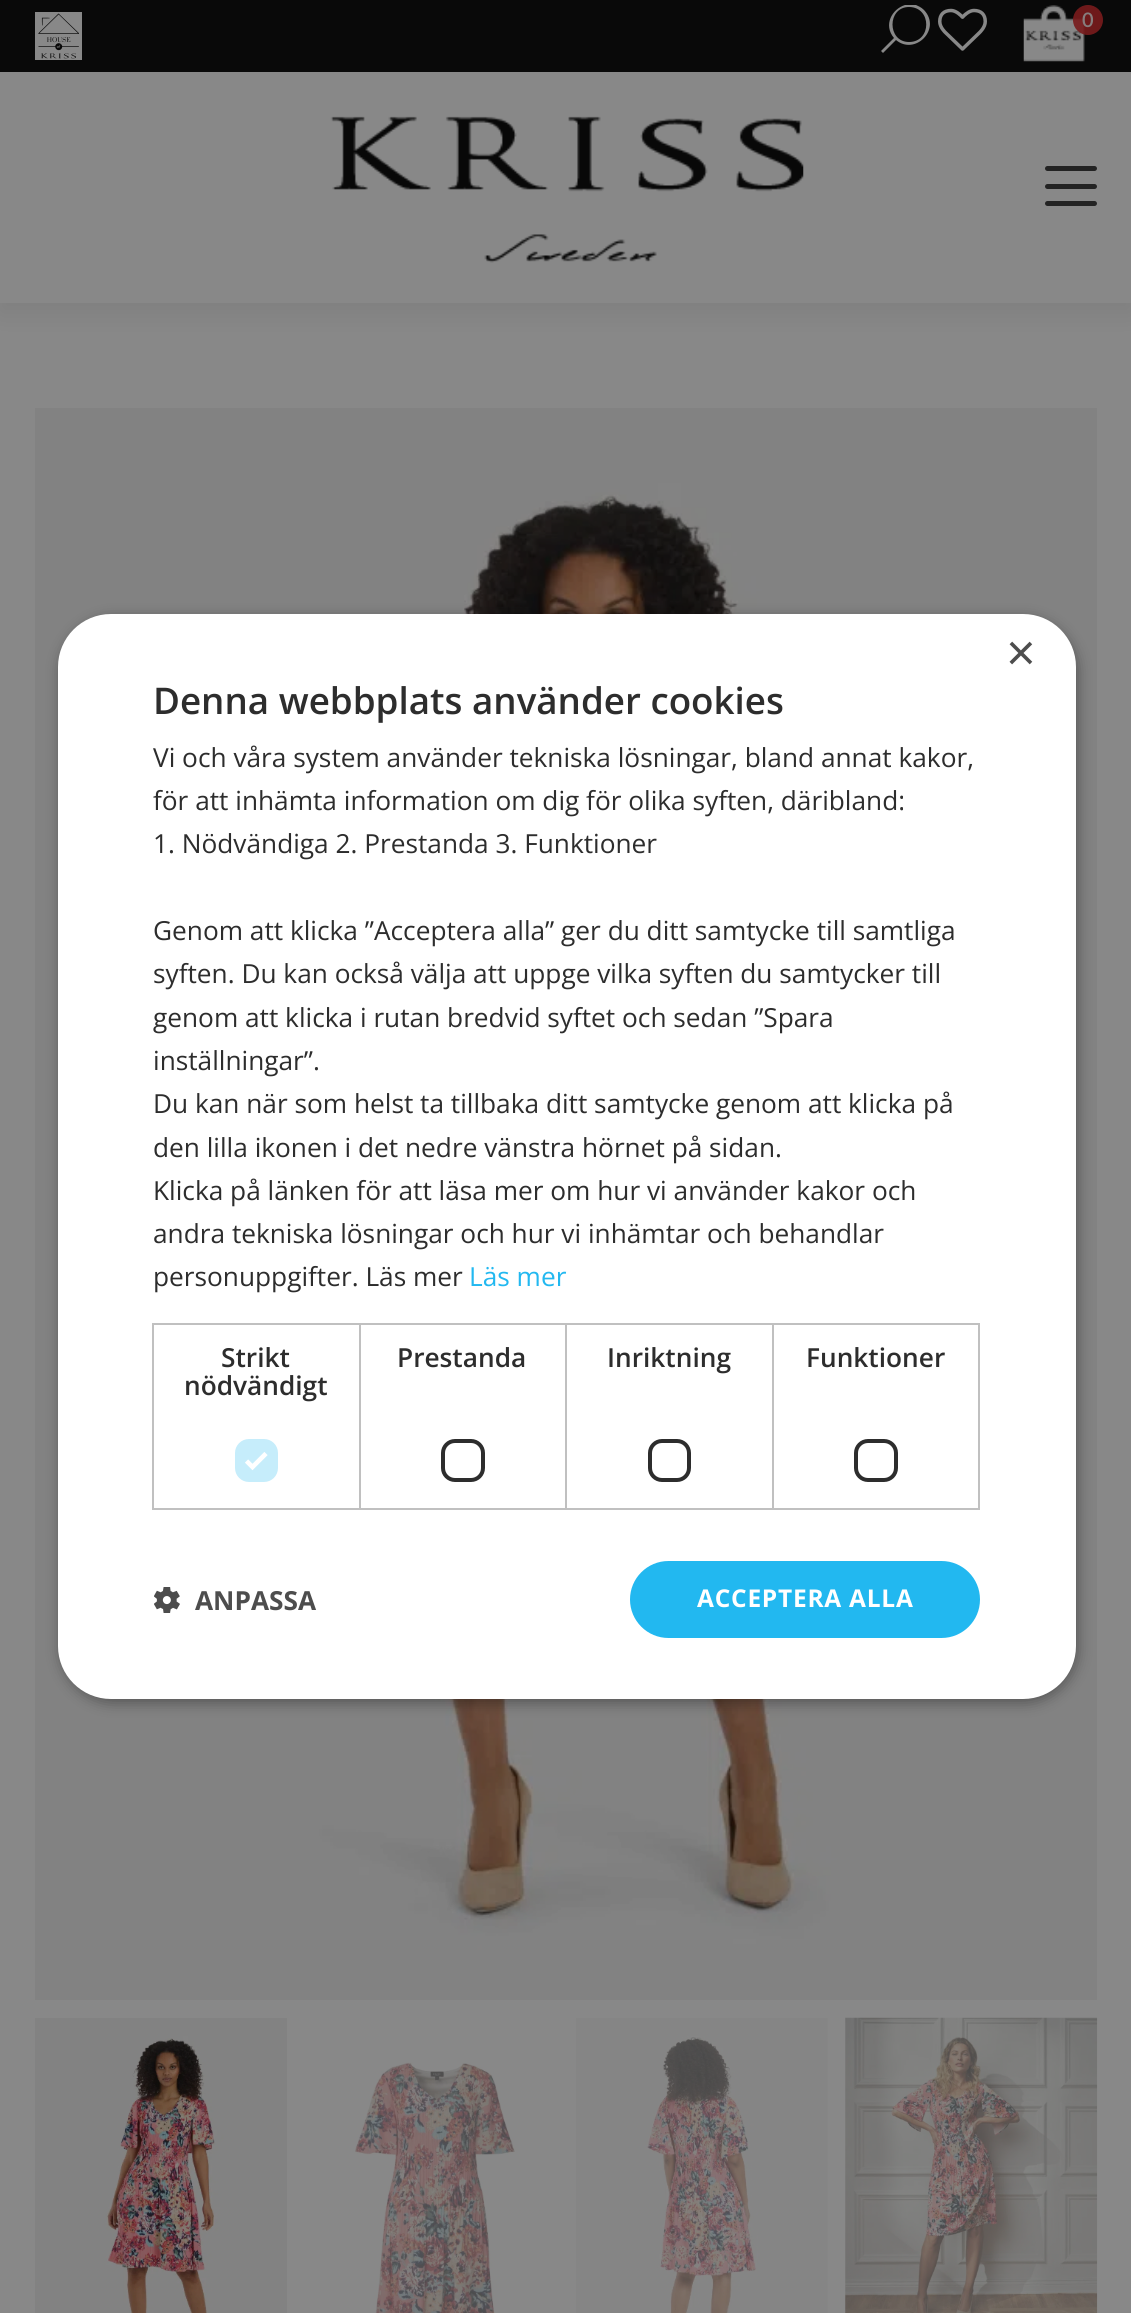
import math
import cairo

surface = cairo.ImageSurface(cairo.FORMAT_RGB24, 1131, 2313)
cr = cairo.Context(surface)
options = cairo.FontOptions()
options.set_hint_metrics(cairo.HINT_METRICS_OFF)
options.set_hint_style(cairo.HINT_STYLE_NONE)
cr.set_font_options(options)
cr.set_miter_limit(4)


def rgb(code):
    cr.set_source_rgb(*(v / 255 for v in bytes.fromhex(code[-6:])))


def tracked(x, y, s, letter, word):
    cr.move_to(x, y)
    for ch in s:
        cr.show_text(ch)
        cr.rel_move_to(letter + word * (ch == ' '), 0)


def rrect(x, y, w, h, r):
    cr.new_sub_path()
    for i, (u, v) in enumerate([(x + w - r, y + h - r), (x + r, y + h - r), (x + r, y + r), (x + w - r, y + r)]):
        cr.arc(u, v, r, i * math.pi / 2, (i + 1) * math.pi / 2)
    cr.close_path()


def soft_shadow(x, y, w, h, r, blur, alpha):
    cr.push_group_with_content(cairo.CONTENT_ALPHA)
    cr.set_operator(cairo.OPERATOR_SOURCE)
    for i in range(15, -16, -2):
        e = blur * i / 6
        if min(w, h) + 2 * e > 0:
            cr.set_source_rgba(0, 0, 0, alpha * math.erfc((i - 1) / 8.5) / 2)
            rrect(x - e, y - e, w + 2 * e, h + 2 * e, max(0, min(r + e + blur * .6, min(w, h) / 2 + e)))
            cr.fill()
    cr.mask(cr.pop_group())


def image(path, x, y, w, h):
    cr.save()
    cr.set_source_surface(cairo.ImageSurface.create_from_png(path), x, y)
    cr.rectangle(x, y, w, h)
    cr.fill()
    cr.restore()


rgb("#888888")
cr.paint()
rgb("#090909")
soft_shadow(0, 9, 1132, 303, 0, 13, 0.08)
rgb("#090909")
cr.rectangle(0, 0, 1131, 72)
cr.fill()
rgb("#888888")
cr.rectangle(35, 12, 47, 48)
cr.fill()
image("img/1.png", 38, 13, 41, 46)
cr.set_fill_rule(cairo.FILL_RULE_EVEN_ODD)
cr.new_path()
cr.move_to(883, 53)
cr.line_to(881, 51)
cr.line_to(894, 38)
cr.curve_to(883, 25, 892, 9, 905, 5)
cr.line_to(916, 5)
cr.curve_to(918, 6, 921, 7, 924, 10)
cr.curve_to(942, 29, 915, 56, 896, 40)
cr.close_path()
cr.move_to(909, 7)
cr.curve_to(887, 7, 887, 42, 909, 42)
cr.curve_to(932, 42, 932, 7, 909, 7)
cr.close_path()
cr.fill()
image("img/2.png", 938, 8, 49, 43)
image("img/3.png", 1023, 5, 62, 57)
cr.set_source_rgba(0.475, 0.106, 0.11, 0.9)
cr.arc(1088, 20, 15, 0, 2 * math.pi)
cr.fill()
rgb("#888888")
cr.rectangle(0, 72, 1131, 231)
cr.fill()
image("img/4.png", 330, 116, 474, 147)
rgb("#232323")
rrect(1045, 166, 52, 5, 2.5)
cr.fill()
rrect(1045, 184, 52, 5, 2.5)
cr.fill()
rrect(1045, 201, 52, 5, 2.5)
cr.fill()
image("img/5.png", 35, 408, 1062, 1592)
image("img/6.png", 35, 2018, 252, 295)
image("img/7.png", 355, 2062, 160, 251)
image("img/8.png", 576, 2018, 252, 295)
image("img/9.png", 845, 2017, 253, 296)
rgb("#000000")
soft_shadow(60, 618, 1018, 1085, 53, 7, 0.35)
rgb("#ffffff")
rrect(58, 614, 1018, 1085, 53)
cr.fill()
cr.rectangle(153, 1324, 207, 185)
rgb("#c0c0c0")
cr.stroke()
rgb("#c6edfb")
rrect(235, 1439, 43, 43, 14)
cr.fill()
cr.new_path()
cr.move_to(246.5, 1461)
cr.line_to(252.5, 1467)
cr.line_to(266, 1453.5)
rgb("#ffffff")
cr.set_line_width(4.6)
cr.stroke()
cr.rectangle(360, 1324, 206, 185)
rgb("#c0c0c0")
cr.set_line_width(2)
cr.stroke()
rrect(443, 1441, 40, 39, 12)
rgb("#2d2d2d")
cr.set_line_width(4)
cr.stroke()
cr.rectangle(566, 1324, 207, 185)
rgb("#c0c0c0")
cr.set_line_width(2)
cr.stroke()
rrect(650, 1441, 39, 39, 12)
rgb("#2d2d2d")
cr.set_line_width(4)
cr.stroke()
cr.rectangle(773, 1324, 206, 185)
rgb("#c0c0c0")
cr.set_line_width(2)
cr.stroke()
rrect(856, 1441, 40, 39, 12)
rgb("#2d2d2d")
cr.set_line_width(4)
cr.stroke()
image("img/10.png", 154, 1587, 26, 26)
rgb("#22b8f0")
rrect(630, 1561, 350, 77, 38.5)
cr.fill()
cr.select_font_face("Lato SemiBold")
cr.set_font_size(20)
rgb("#867d7d")
cr.move_to(1082, 27)
cr.show_text("0")
cr.select_font_face("Liberation Sans")
cr.set_font_size(51)
rgb("#4d4d4d")
cr.move_to(1006, 670)
cr.show_text("×")
cr.select_font_face("Open Sans SemiBold")
cr.set_font_size(36.75)
rgb("#2d2d2d")
cr.move_to(153, 714)
cr.show_text("Denna webbplats använder cookies")
cr.select_font_face("Open Sans")
cr.set_font_size(26.25)
for x, y, s in [
    (153, 767, "Vi och våra system använder tekniska lösningar, bland annat kakor,"),
    (153, 810, "för att inhämta information om dig för olika syften, däribland:"),
    (153, 853, "1. Nödvändiga 2. Prestanda 3. Funktioner"),
    (153, 940, "Genom att klicka ”Acceptera alla” ger du ditt samtycke till samtliga"),
    (153, 983, "syften. Du kan också välja att uppge vilka syften du samtycker till"),
    (153, 1027, "genom att klicka i rutan bredvid syftet och sedan ”Spara"),
    (153, 1070, "inställningar”."),
    (153, 1113, "Du kan när som helst ta tillbaka ditt samtycke genom att klicka på"),
    (153, 1157, "den lilla ikonen i det nedre vänstra hörnet på sidan."),
    (153, 1200, "Klicka på länken för att läsa mer om hur vi använder kakor och"),
    (153, 1243, "andra tekniska lösningar och hur vi inhämtar och behandlar"),
    (153, 1286, "personuppgifter. Läs mer"),
]:
    cr.move_to(x, y)
    cr.show_text(s)
rgb("#22b8f0")
cr.move_to(469, 1286)
cr.show_text("Läs mer")
cr.select_font_face("Open Sans SemiBold")
rgb("#2d2d2d")
for x, y, s in [
    (221, 1367, "Strikt"),
    (184, 1395, "nödvändigt"),
    (397, 1367, "Prestanda"),
    (607, 1367, "Inriktning"),
    (806, 1367, "Funktioner"),
]:
    cr.move_to(x, y)
    cr.show_text(s)
cr.select_font_face("Open Sans", cairo.FONT_SLANT_NORMAL, cairo.FONT_WEIGHT_BOLD)
rgb("#4d4d4d")
cr.move_to(195, 1610)
cr.show_text("ANPASSA")
cr.set_font_size(24.5)
rgb("#ffffff")
tracked(697, 1607, "ACCEPTERA ALLA", 0.75, 0)
surface.write_to_png("page.png")
